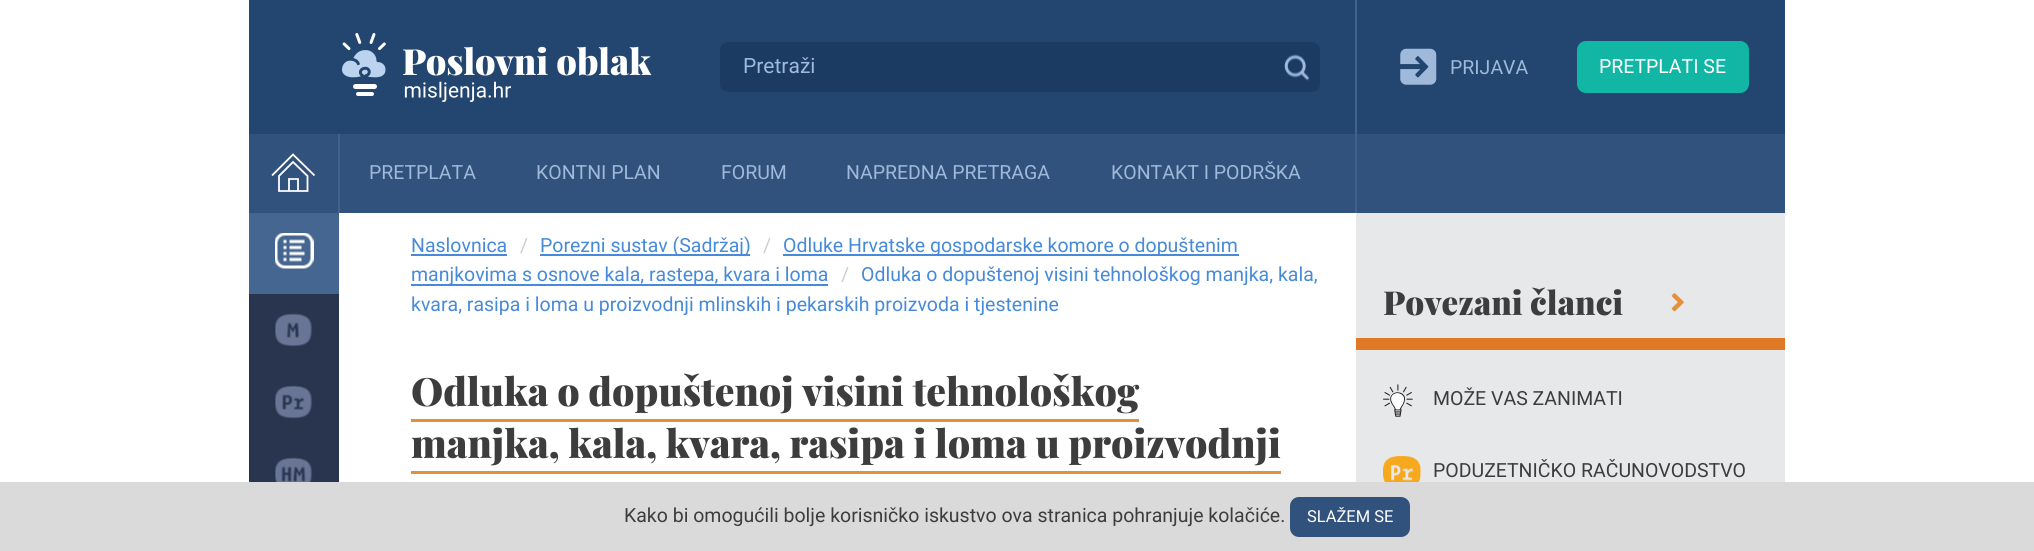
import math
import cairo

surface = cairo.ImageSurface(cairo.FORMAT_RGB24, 2034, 551)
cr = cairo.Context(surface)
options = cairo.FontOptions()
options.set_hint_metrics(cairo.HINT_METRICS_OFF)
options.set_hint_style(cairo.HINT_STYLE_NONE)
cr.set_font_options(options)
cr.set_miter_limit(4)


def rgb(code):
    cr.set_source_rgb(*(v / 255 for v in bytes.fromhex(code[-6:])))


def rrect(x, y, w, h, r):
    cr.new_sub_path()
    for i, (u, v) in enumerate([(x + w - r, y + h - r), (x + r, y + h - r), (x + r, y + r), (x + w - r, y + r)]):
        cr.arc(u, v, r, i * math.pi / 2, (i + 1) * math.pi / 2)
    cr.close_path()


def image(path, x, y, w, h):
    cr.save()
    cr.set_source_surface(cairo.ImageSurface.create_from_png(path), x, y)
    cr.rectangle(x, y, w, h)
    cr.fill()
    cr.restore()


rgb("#ffffff")
cr.paint()
for x, y, w, h, color in [
    (249, 134, 1536, 79, "#31527c"),
    (1355, 132, 2, 81, "#41638a"),
    (338, 132, 2, 81, "#41638a"),
    (249, 0, 1536, 134, "#234670"),
    (1355, 0, 2, 134, "#41638a"),
]:
    rgb(color)
    cr.rectangle(x, y, w, h)
    cr.fill()
image("img/1.png", 342, 33, 310, 69)
rgb("#1c3b63")
rrect(720, 42, 600, 50, 8)
cr.fill()
image("img/2.png", 1284, 54, 25, 27)
image("img/3.png", 1400, 48, 37, 37)
rgb("#11b6a5")
rrect(1577, 41, 172, 52, 9)
cr.fill()
rgb("#29344e")
cr.rectangle(249, 294, 90, 188)
cr.fill()
rgb("#446691")
cr.rectangle(249, 213, 90, 81)
cr.fill()
image("img/4.png", 275, 233, 39, 36)
image("img/5.png", 275, 313, 38, 34)
image("img/6.png", 275, 385, 38, 34)
image("img/7.png", 275, 457, 38, 25)
cr.new_path()
cr.move_to(307.5, 176)
cr.line_to(307.5, 191)
cr.line_to(279, 191)
cr.line_to(279, 176)
cr.line_to(293, 162)
cr.close_path()
cr.move_to(289, 191)
cr.line_to(289, 179)
cr.line_to(298, 179)
cr.line_to(298, 191)
cr.move_to(314.5, 175.5)
cr.line_to(293, 154.5)
cr.line_to(272, 175.5)
rgb("#ffffff")
cr.set_line_width(1.8)
cr.stroke()
rgb("#e7e8ea")
cr.rectangle(1356, 213, 429, 269)
cr.fill()
rgb("#e07925")
cr.rectangle(1356, 338, 429, 12)
cr.fill()
image("img/8.png", 1671, 293, 13, 19)
image("img/9.png", 1383, 384, 30, 33)
image("img/10.png", 1383, 456, 38, 26)
for x, y, w, h, color in [
    (411, 254, 96, 2, "#468ad9"),
    (540, 254, 210, 2, "#468ad9"),
    (783, 254, 456, 2, "#468ad9"),
    (411, 284, 417, 2, "#468ad9"),
    (411, 419, 728, 3, "#e58f39"),
    (411, 471, 870, 3, "#e58f39"),
    (0, 482, 2034, 69, "#dadadb"),
]:
    rgb(color)
    cr.rectangle(x, y, w, h)
    cr.fill()
rgb("#31527c")
rrect(1290, 497, 120, 40, 9)
cr.fill()
cr.select_font_face("Roboto")
cr.set_font_size(21)
rgb("#9eb9d9")
cr.move_to(743, 73)
cr.show_text("Pretraži")
cr.set_font_size(19.5)
cr.move_to(1450, 74)
cr.show_text("PRIJAVA")
rgb("#ffffff")
cr.move_to(1599, 73)
cr.show_text("PRETPLATI SE")
rgb("#9eb9d9")
for x, y, s in [
    (369, 179, "PRETPLATA"),
    (536, 179, "KONTNI PLAN"),
    (721, 179, "FORUM"),
    (846, 179, "NAPREDNA PRETRAGA"),
    (1111, 179, "KONTAKT I PODRŠKA"),
]:
    cr.move_to(x, y)
    cr.show_text(s)
cr.select_font_face("Playfair Display Black")
cr.set_font_size(33)
rgb("#3d3d3d")
cr.move_to(1383, 315)
cr.show_text("Povezani članci")
cr.select_font_face("Roboto")
cr.set_font_size(19.5)
cr.move_to(1433, 405)
cr.show_text("MOŽE VAS ZANIMATI")
cr.move_to(1433, 477)
cr.show_text("PODUZETNIČKO RAČUNOVODSTVO")
rgb("#468ad9")
cr.move_to(411, 252)
cr.show_text("Naslovnica")
rgb("#cccccc")
cr.move_to(520, 252)
cr.show_text("/")
rgb("#468ad9")
cr.move_to(540, 252)
cr.show_text("Porezni sustav (Sadržaj)")
rgb("#cccccc")
cr.move_to(763, 252)
cr.show_text("/")
rgb("#468ad9")
cr.move_to(783, 252)
cr.show_text("Odluke Hrvatske gospodarske komore o dopuštenim")
cr.move_to(411, 281)
cr.show_text("manjkovima s osnove kala, rastepa, kvara i loma")
rgb("#cccccc")
cr.move_to(841, 281)
cr.show_text("/")
rgb("#468ad9")
cr.move_to(861, 281)
cr.show_text("Odluka o dopuštenoj visini tehnološkog manjka, kala,")
cr.move_to(411, 311)
cr.show_text("kvara, rasipa i loma u proizvodnji mlinskih i pekarskih proizvoda i tjestenine")
cr.select_font_face("Playfair Display Black")
cr.set_font_size(39)
rgb("#3d3d3d")
cr.move_to(411, 406)
cr.show_text("Odluka o dopuštenoj visini tehnološkog")
cr.move_to(411, 458)
cr.show_text("manjka, kala, kvara, rasipa i loma u proizvodnji")
cr.select_font_face("Roboto")
cr.set_font_size(19.5)
cr.move_to(624, 522)
cr.show_text("Kako bi omogućili bolje korisničko iskustvo ova stranica pohranjuje kolačiće.")
cr.set_font_size(16.5)
rgb("#ffffff")
cr.move_to(1307, 522)
cr.show_text("SLAŽEM SE")
surface.write_to_png("page.png")
